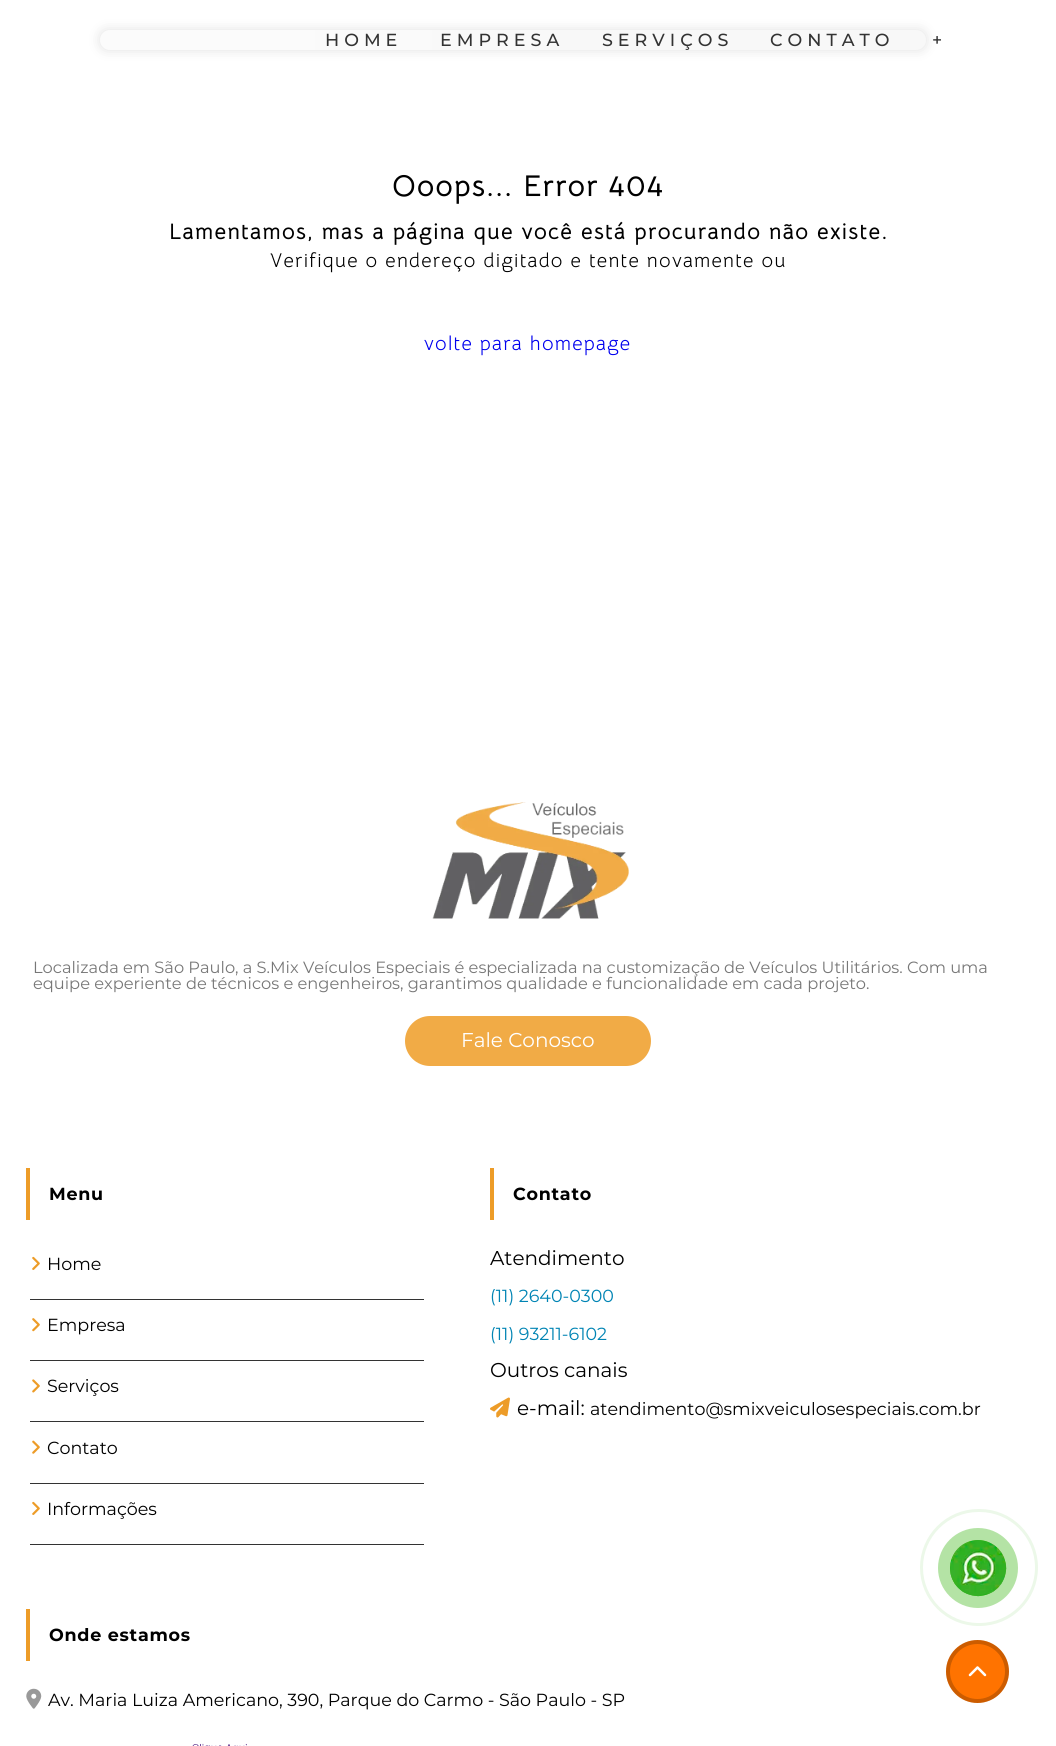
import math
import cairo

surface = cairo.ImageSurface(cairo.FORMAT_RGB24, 1056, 1746)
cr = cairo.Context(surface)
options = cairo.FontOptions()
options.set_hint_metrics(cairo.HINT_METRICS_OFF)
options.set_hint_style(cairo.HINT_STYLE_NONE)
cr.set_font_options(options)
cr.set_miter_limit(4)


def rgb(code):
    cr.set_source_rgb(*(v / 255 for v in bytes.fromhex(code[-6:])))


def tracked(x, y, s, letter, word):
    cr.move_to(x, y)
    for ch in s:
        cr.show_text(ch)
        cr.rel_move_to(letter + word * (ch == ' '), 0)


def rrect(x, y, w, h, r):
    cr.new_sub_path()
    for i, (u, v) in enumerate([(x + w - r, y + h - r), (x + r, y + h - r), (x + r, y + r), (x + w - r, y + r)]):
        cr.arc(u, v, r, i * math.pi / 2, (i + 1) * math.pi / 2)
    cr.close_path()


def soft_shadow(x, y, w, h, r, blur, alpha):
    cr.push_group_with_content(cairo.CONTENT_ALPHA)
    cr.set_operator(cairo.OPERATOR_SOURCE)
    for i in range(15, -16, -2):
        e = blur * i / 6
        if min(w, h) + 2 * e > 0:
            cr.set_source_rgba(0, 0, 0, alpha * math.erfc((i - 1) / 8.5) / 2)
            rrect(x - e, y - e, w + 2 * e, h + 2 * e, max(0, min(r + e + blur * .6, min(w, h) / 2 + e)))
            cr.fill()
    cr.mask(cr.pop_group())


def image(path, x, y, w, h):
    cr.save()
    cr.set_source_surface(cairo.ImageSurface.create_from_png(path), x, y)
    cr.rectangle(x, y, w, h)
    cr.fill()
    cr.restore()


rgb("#ffffff")
cr.paint()
rgb("#a5a5a5")
soft_shadow(100, 30, 826, 20, 10, 6, 0.33)
gradient = cairo.LinearGradient(926, 40, 100, 40)
gradient.add_color_stop_rgba(0.4, 0.973, 0.973, 0.973, 1)
gradient.add_color_stop_rgba(0.8, 0.984, 0.984, 0.984, 1)
cr.set_source(gradient)
rrect(100, 30, 826, 20, 10)
cr.fill()
image("img/1.png", 432, 802, 197, 117)
rgb("#f1ab46")
rrect(405, 1016, 246, 50, 25)
cr.fill()
rgb("#ed9c28")
cr.rectangle(26, 1168, 4, 52)
cr.fill()
rgb("#333333")
cr.rectangle(30, 1299, 394, 1)
cr.fill()
image("img/2.png", 32, 1256, 8, 14)
cr.rectangle(30, 1360, 394, 1)
cr.fill()
image("img/3.png", 32, 1318, 8, 14)
cr.rectangle(30, 1421, 394, 1)
cr.fill()
image("img/4.png", 32, 1379, 8, 14)
cr.rectangle(30, 1483, 394, 1)
cr.fill()
image("img/5.png", 32, 1440, 8, 14)
cr.rectangle(30, 1544, 394, 1)
cr.fill()
image("img/2.png", 32, 1501, 8, 14)
rgb("#ed9c28")
cr.rectangle(490, 1168, 4, 52)
cr.fill()
image("img/6.png", 490, 1397, 20, 21)
cr.rectangle(26, 1609, 4, 52)
cr.fill()
image("img/7.png", 26, 1688, 16, 21)
image("img/8.png", 192, 1743, 55, 3)
rrect(921.5, 1510.5, 115, 114, 57)
rgb("#ecf8e9")
cr.set_line_width(3)
cr.stroke()
rgb("#b4e3a5")
cr.arc(978, 1568, 40, 0, 2 * math.pi)
cr.fill()
rgb("#43b91e")
cr.arc(978, 1568, 28, 0, 2 * math.pi)
cr.fill()
image("img/9.png", 950, 1540, 57, 57)
rgb("#ff7300")
cr.arc(977.5, 1671.5, 31.5, 0, 2 * math.pi)
cr.fill()
cr.arc(977.5, 1671.5, 29.5, 0, 2 * math.pi)
cr.set_source_rgba(0, 0, 0, 0.2)
cr.set_line_width(4)
cr.stroke()
image("img/10.png", 968, 1666, 19, 11)
cr.select_font_face("Montserrat Medium")
cr.set_font_size(17.5)
rgb("#333333")
for x, y, s in [
    (325, 46, "HOME"),
    (440, 46, "EMPRESA"),
    (602, 46, "SERVIÇOS"),
    (770, 46, "CONTATO"),
    (932, 46, "+"),
]:
    tracked(x, y, s, 5, 0)
cr.select_font_face("Bellota Text", cairo.FONT_SLANT_NORMAL, cairo.FONT_WEIGHT_BOLD)
cr.set_font_size(30)
rgb("#000000")
tracked(392, 196, "Ooops... Error 404", 1.25, 0)
cr.set_font_size(22.4)
tracked(169, 239, "Lamentamos, mas a página que você está procurando não existe.", 1.25, 0)
cr.select_font_face("Bellota Text")
cr.set_font_size(20)
tracked(270, 267, "Verifique o endereço digitado e tente novamente ou", 1.25, 0)
rgb("#0000ee")
tracked(424, 350, "volte para homepage", 1.25, 0)
cr.select_font_face("Montserrat")
cr.set_font_size(16.25)
rgb("#777777")
cr.move_to(33, 973)
cr.show_text("Localizada em São Paulo, a S.Mix Veículos Especiais é especializada na customização de Veículos Utilitários. Com uma")
cr.move_to(33, 989)
cr.show_text("equipe experiente de técnicos e engenheiros, garantimos qualidade e funcionalidade em cada projeto.")
cr.set_font_size(20)
rgb("#ffffff")
cr.move_to(461, 1047)
cr.show_text("Fale Conosco")
cr.select_font_face("Montserrat", cairo.FONT_SLANT_NORMAL, cairo.FONT_WEIGHT_BOLD)
cr.set_font_size(17.5)
rgb("#000000")
tracked(49, 1200, "Menu", 0.75, 0)
cr.select_font_face("Montserrat")
for x, y, s in [
    (47, 1270, "Home"),
    (47, 1331, "Empresa"),
    (47, 1392, "Serviços"),
    (47, 1454, "Contato"),
    (47, 1515, "Informações"),
]:
    cr.move_to(x, y)
    cr.show_text(s)
cr.select_font_face("Montserrat", cairo.FONT_SLANT_NORMAL, cairo.FONT_WEIGHT_BOLD)
tracked(513, 1200, "Contato", 0.75, 0)
cr.select_font_face("Montserrat")
cr.set_font_size(20)
cr.move_to(490, 1265)
cr.show_text("Atendimento")
cr.set_font_size(17.5)
rgb("#0084b4")
cr.move_to(490, 1302)
cr.show_text("(11) 2640-0300")
cr.move_to(490, 1340)
cr.show_text("(11) 93211-6102")
cr.set_font_size(20)
rgb("#000000")
cr.move_to(490, 1377)
cr.show_text("Outros canais")
cr.move_to(517, 1415)
cr.show_text("e-mail:")
cr.set_font_size(17.5)
cr.move_to(590, 1415)
cr.show_text("atendimento@smixveiculosespeciais.com.br")
cr.select_font_face("Montserrat", cairo.FONT_SLANT_NORMAL, cairo.FONT_WEIGHT_BOLD)
tracked(49, 1641, "Onde estamos", 0.75, 0)
cr.select_font_face("Montserrat")
cr.move_to(48, 1706)
cr.show_text("Av. Maria Luiza Americano, 390, Parque do Carmo - São Paulo - SP")
surface.write_to_png("page.png")
